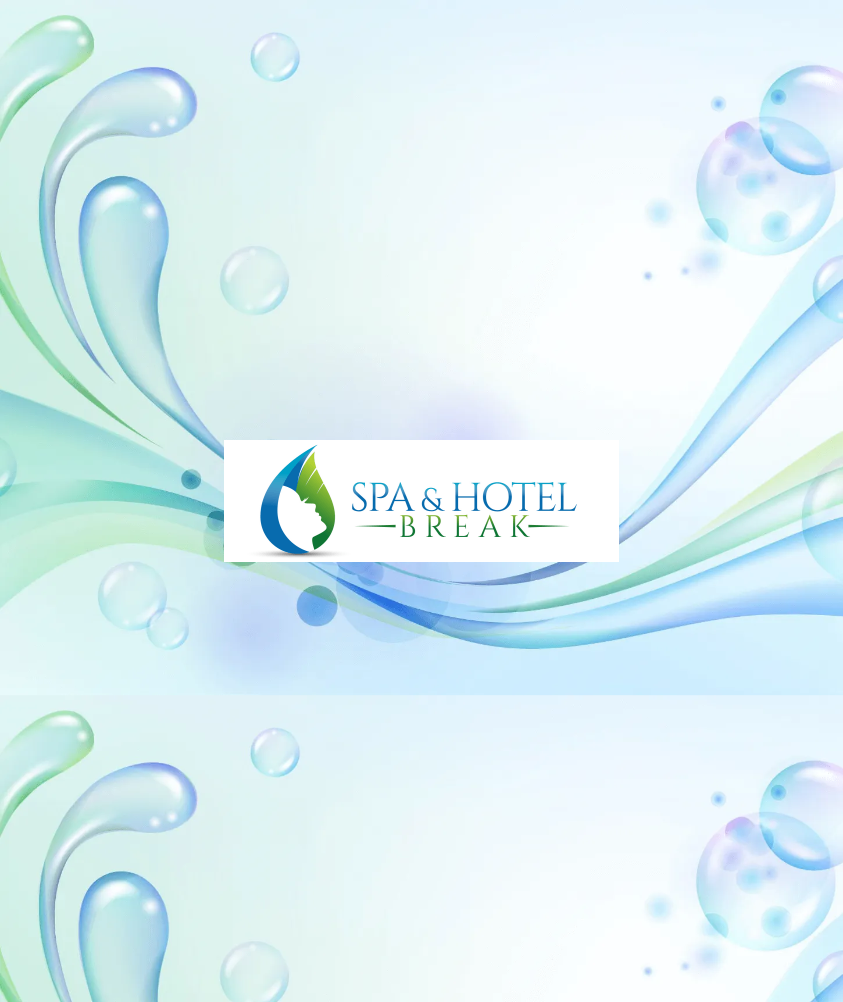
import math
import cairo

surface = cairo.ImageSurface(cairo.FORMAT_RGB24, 843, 1002)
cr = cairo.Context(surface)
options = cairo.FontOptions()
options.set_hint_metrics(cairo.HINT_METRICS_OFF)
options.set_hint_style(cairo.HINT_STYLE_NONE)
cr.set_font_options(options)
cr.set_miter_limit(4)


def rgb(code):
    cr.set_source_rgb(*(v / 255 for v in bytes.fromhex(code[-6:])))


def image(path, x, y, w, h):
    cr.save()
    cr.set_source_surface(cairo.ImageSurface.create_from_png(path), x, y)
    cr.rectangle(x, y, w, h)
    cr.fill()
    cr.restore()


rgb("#ffffff")
cr.paint()
image("img/1.png", 0, 0, 843, 1002)
image("img/2.png", 224, 440, 395, 122)
surface.write_to_png("page.png")
